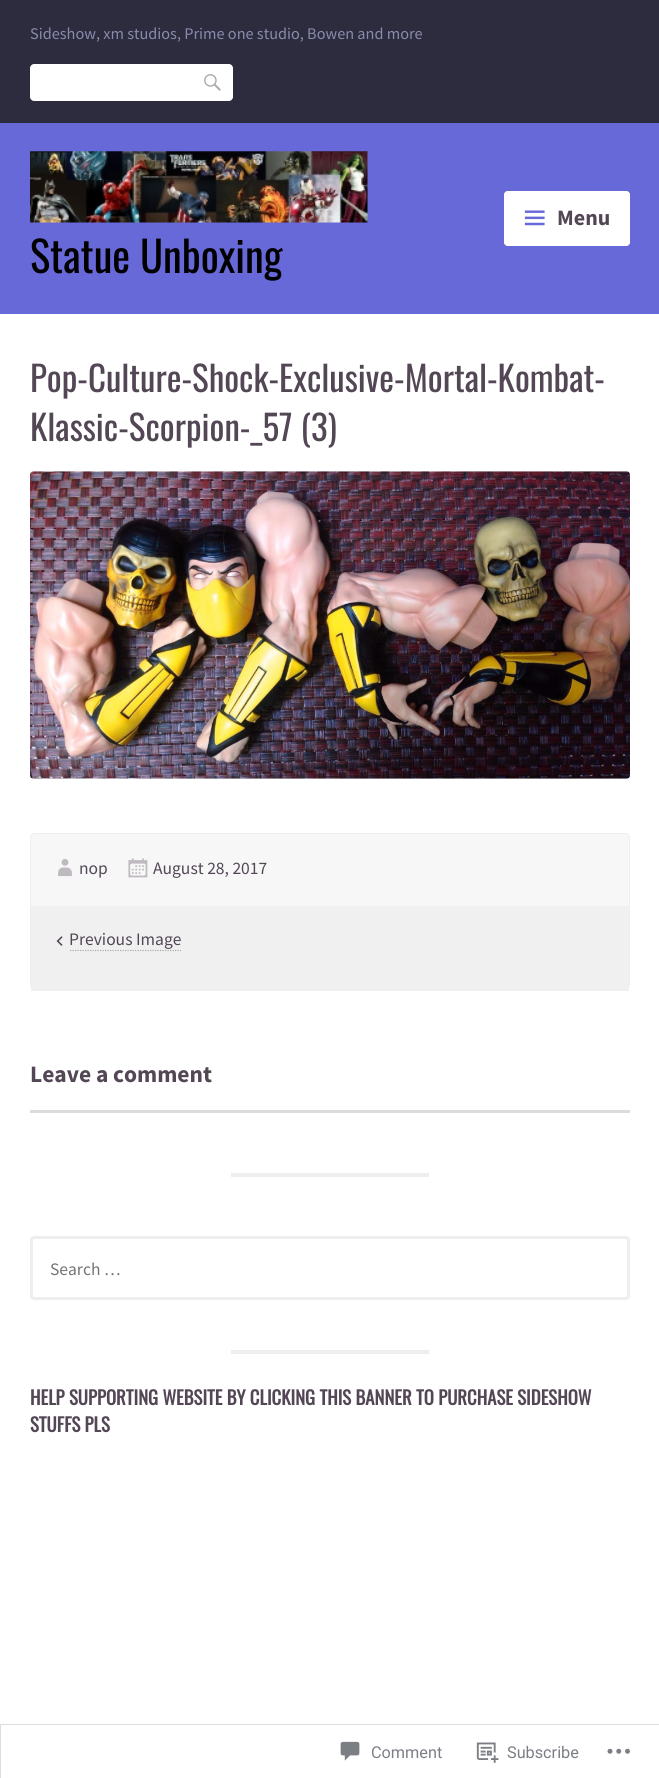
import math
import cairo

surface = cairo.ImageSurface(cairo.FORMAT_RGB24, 659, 1778)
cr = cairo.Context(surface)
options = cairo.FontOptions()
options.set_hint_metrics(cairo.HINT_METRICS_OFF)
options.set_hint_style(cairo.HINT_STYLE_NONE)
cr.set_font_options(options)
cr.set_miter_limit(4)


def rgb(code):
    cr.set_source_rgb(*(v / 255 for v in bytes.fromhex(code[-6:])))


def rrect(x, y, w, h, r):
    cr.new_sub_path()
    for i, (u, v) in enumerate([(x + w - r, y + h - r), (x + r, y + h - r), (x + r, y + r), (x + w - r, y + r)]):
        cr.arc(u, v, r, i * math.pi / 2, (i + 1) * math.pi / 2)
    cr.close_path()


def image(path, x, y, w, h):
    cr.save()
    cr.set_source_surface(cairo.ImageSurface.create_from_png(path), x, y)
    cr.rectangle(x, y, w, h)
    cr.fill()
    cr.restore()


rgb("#ffffff")
cr.paint()
rgb("#2c2c3e")
cr.rectangle(0, 0, 659, 123)
cr.fill()
rgb("#ffffff")
cr.new_path()
cr.move_to(34, 64)
cr.line_to(193, 64)
cr.line_to(193, 101)
cr.line_to(34, 101)
cr.curve_to(32, 101, 30, 99, 30, 97)
cr.line_to(30, 68)
cr.curve_to(30, 66, 32, 64, 34, 64)
cr.close_path()
cr.fill()
cr.new_path()
cr.move_to(193, 64)
cr.line_to(229, 64)
cr.curve_to(231, 64, 233, 66, 233, 68)
cr.line_to(233, 97)
cr.curve_to(233, 99, 231, 101, 229, 101)
cr.line_to(193, 101)
cr.close_path()
cr.fill()
image("img/1.png", 204, 74, 17, 17)
rgb("#6869d9")
cr.rectangle(0, 123, 659, 191)
cr.fill()
rgb("#ffffff")
rrect(504, 191, 126, 55, 4)
cr.fill()
rrect(505.5, 192.5, 123, 52, 2.5)
cr.set_source_rgba(1, 1, 1, 0.85)
cr.set_line_width(3)
cr.stroke()
image("img/2.png", 524, 210, 21, 16)
image("img/3.png", 30, 151, 338, 72)
image("img/4.png", 30, 471, 600, 308)
rgb("#f7f7f7")
rrect(30.5, 833.5, 599, 155, 3.5)
cr.fill_preserve()
rgb("#eeeeee")
cr.set_line_width(1)
cr.stroke()
image("img/5.png", 58, 859, 14, 18)
image("img/6.png", 128, 858, 20, 20)
rgb("#f0f0f0")
cr.rectangle(31, 906, 598, 85)
cr.fill()
image("img/7.png", 56, 936, 7, 10)
cr.new_path()
cr.move_to(70, 950.5)
cr.line_to(181, 950.5)
rgb("#aaaaaa")
cr.set_line_width(1.2)
cr.set_dash([1.25, 1.25])
cr.stroke()
rgb("#dcdcde")
cr.rectangle(30, 1110, 600, 3)
cr.fill()
rgb("#eeeeee")
cr.rectangle(231, 1173, 198, 4)
cr.fill()
rrect(31.5, 1237.5, 597, 61, 2.5)
cr.set_line_width(3)
cr.set_dash([])
cr.stroke()
cr.rectangle(231, 1350, 198, 4)
cr.fill()
cr.rectangle(0.5, 1724.5, 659, 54)
rgb("#dddddf")
cr.set_line_width(1)
cr.stroke()
image("img/8.png", 340, 1741, 20, 20)
image("img/9.png", 476, 1742, 23, 21)
image("img/10.png", 607, 1748, 23, 6)
cr.select_font_face("Source Sans Pro")
cr.set_font_size(16.25)
rgb("#8a8aac")
cr.move_to(30, 39)
cr.show_text("Sideshow, xm studios, Prime one studio, Bowen and more")
cr.select_font_face("Source Sans Pro", cairo.FONT_SLANT_NORMAL, cairo.FONT_WEIGHT_BOLD)
cr.set_font_size(22)
rgb("#534756")
cr.move_to(557, 225)
cr.show_text("Menu")
cr.select_font_face("Oswald")
cr.set_font_size(42.5)
rgb("#000000")
cr.move_to(30, 273)
cr.show_text("Statue Unboxing")
cr.set_font_size(35)
rgb("#534756")
cr.move_to(30, 392)
cr.show_text("Pop-Culture-Shock-Exclusive-Mortal-Kombat-")
cr.move_to(30, 441)
cr.show_text("Klassic-Scorpion-_57 (3)")
cr.select_font_face("Source Sans Pro")
cr.set_font_size(17.5)
for x, y, s in [
    (79, 874, "nop"),
    (153, 874, "August 28, 2017"),
    (69, 945, "Previous Image"),
]:
    cr.move_to(x, y)
    cr.show_text(s)
cr.select_font_face("Source Sans Pro", cairo.FONT_SLANT_NORMAL, cairo.FONT_WEIGHT_BOLD)
cr.set_font_size(23.5)
cr.move_to(30, 1082)
cr.show_text("Leave a comment")
cr.select_font_face("Source Sans Pro")
cr.set_font_size(17.5)
rgb("#757575")
cr.move_to(50, 1275)
cr.show_text("Search …")
cr.select_font_face("Oswald", cairo.FONT_SLANT_NORMAL, cairo.FONT_WEIGHT_BOLD)
cr.set_font_size(18.75)
rgb("#534756")
cr.move_to(30, 1405)
cr.show_text("HELP SUPPORTING WEBSITE BY CLICKING THIS BANNER TO PURCHASE SIDESHOW")
cr.move_to(30, 1432)
cr.show_text("STUFFS PLS")
cr.select_font_face("Roboto")
cr.set_font_size(16.25)
rgb("#7b7f85")
cr.move_to(371, 1758)
cr.show_text("Comment")
cr.move_to(507, 1758)
cr.show_text("Subscribe")
surface.write_to_png("page.png")
